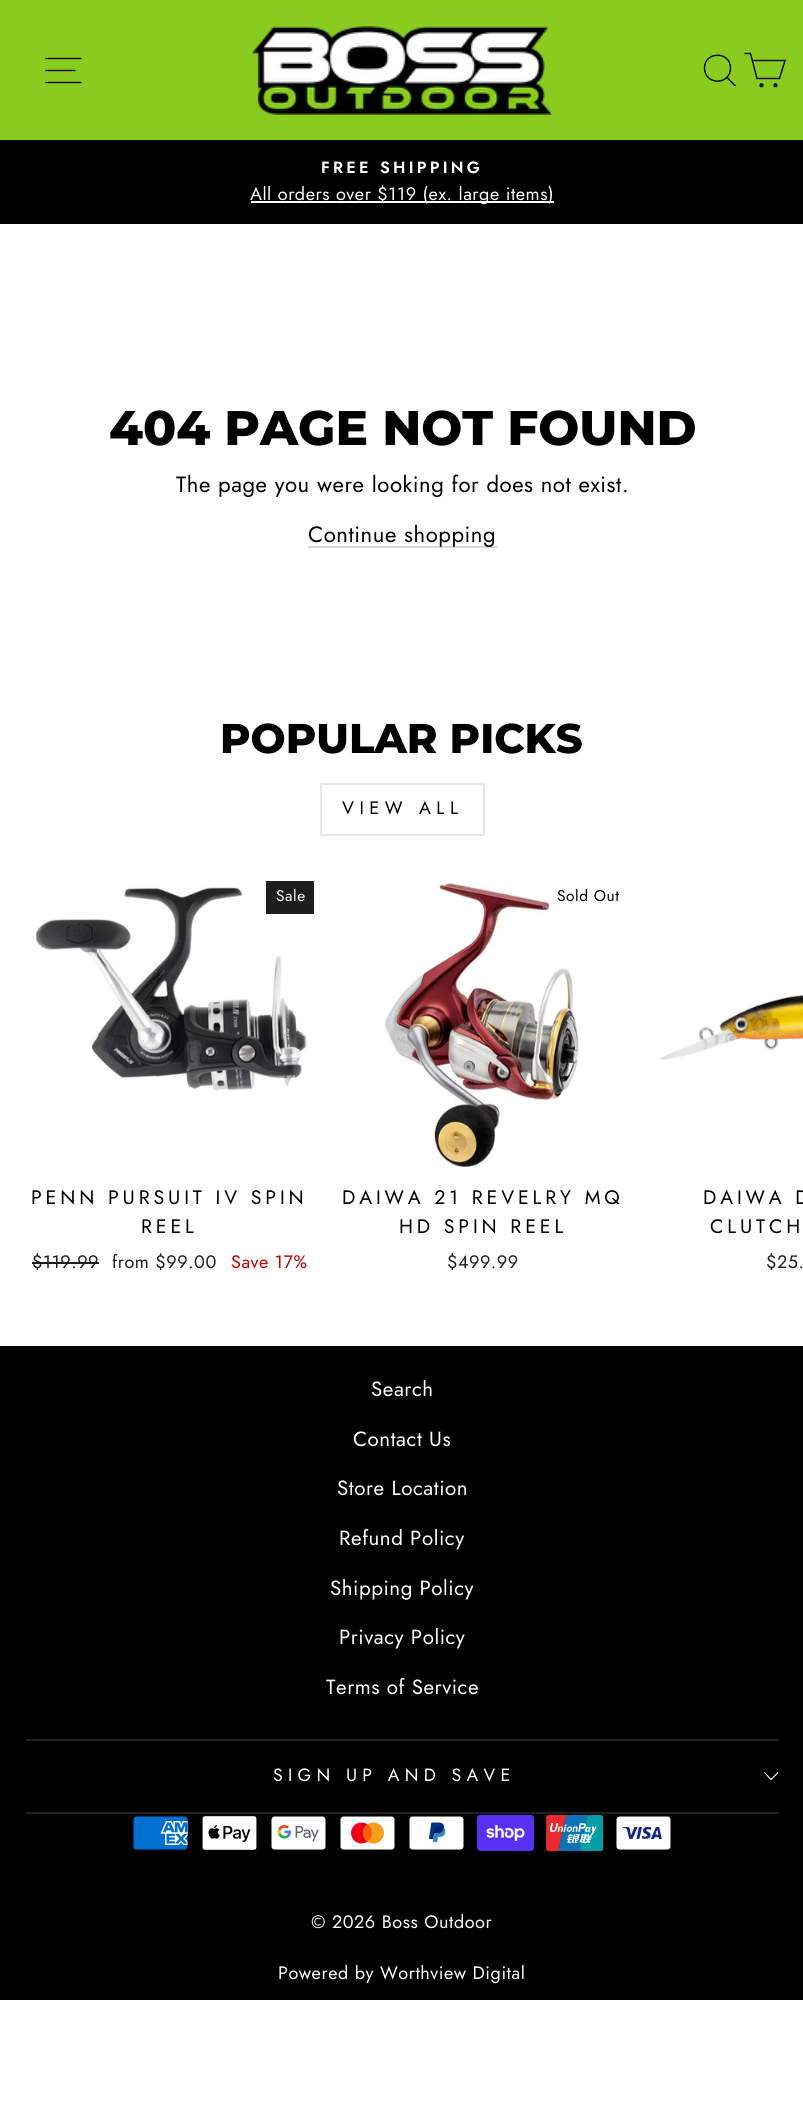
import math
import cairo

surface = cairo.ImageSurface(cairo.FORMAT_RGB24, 803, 2109)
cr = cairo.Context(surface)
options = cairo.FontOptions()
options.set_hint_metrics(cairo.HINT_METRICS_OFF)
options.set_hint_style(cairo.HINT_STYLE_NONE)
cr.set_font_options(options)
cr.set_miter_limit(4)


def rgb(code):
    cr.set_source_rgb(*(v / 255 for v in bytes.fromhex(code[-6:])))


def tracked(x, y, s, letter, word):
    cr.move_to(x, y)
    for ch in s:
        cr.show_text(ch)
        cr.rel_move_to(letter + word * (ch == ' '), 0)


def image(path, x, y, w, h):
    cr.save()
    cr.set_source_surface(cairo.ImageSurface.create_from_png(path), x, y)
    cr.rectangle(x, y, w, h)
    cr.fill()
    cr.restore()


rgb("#ffffff")
cr.paint()
rgb("#89cc20")
cr.rectangle(0, 0, 803, 140)
cr.fill()
cr.new_path()
cr.move_to(45.5, 58.5)
cr.line_to(81.5, 58.5)
cr.move_to(45.5, 70.5)
cr.line_to(75.5, 70.5)
cr.move_to(45.5, 82.5)
cr.line_to(81.5, 82.5)
rgb("#000000")
cr.set_line_width(1.4)
cr.stroke()
image("img/1.png", 252, 26, 300, 89)
cr.new_path()
cr.move_to(730.5, 68)
cr.curve_to(730.5, 85.5, 704.5, 85.5, 704.5, 68)
cr.curve_to(704.5, 51, 730.5, 51, 730.5, 68)
cr.close_path()
cr.move_to(735.5, 86)
cr.line_to(727, 77.5)
cr.stroke()
cr.new_path()
cr.move_to(752.5, 60.5)
cr.line_to(785, 60.5)
cr.line_to(779.5, 78.5)
cr.line_to(757, 78.5)
cr.line_to(750.5, 53.5)
cr.line_to(744.5, 53.5)
cr.stroke()
cr.arc(761.5, 85.3, 1.4, 0, 2 * math.pi)
cr.fill_preserve()
cr.stroke()
cr.arc(775.5, 85.3, 1.4, 0, 2 * math.pi)
cr.fill_preserve()
cr.stroke()
for x, y, w, h, color in [
    (0, 140, 803, 84, "#000000"),
    (251, 201, 303, 2, "#ffffff"),
    (308, 546, 189, 2, "#d9d9d9"),
]:
    rgb(color)
    cr.rectangle(x, y, w, h)
    cr.fill()
cr.rectangle(321, 784, 163, 51)
rgb("#e8e8e1")
cr.set_line_width(2)
cr.stroke()
image("img/2.png", 36, 887, 271, 204)
rgb("#1c1d1d")
cr.rectangle(266, 881, 48, 33)
cr.fill()
cr.rectangle(32, 1262, 67, 2)
cr.fill()
image("img/3.png", 384, 882, 195, 287)
image("img/4.png", 659, 994, 144, 66)
rgb("#000000")
cr.rectangle(0, 1346, 803, 654)
cr.fill()
rgb("#1f1f1f")
cr.rectangle(26, 1739, 753, 2)
cr.fill()
cr.new_path()
cr.move_to(764.5, 1772.5)
cr.line_to(771, 1779.5)
cr.line_to(778, 1772.5)
rgb("#ffffff")
cr.set_line_width(1.1)
cr.stroke()
rgb("#1f1f1f")
cr.rectangle(26, 1812, 753, 2)
cr.fill()
image("img/5.png", 133, 1816, 55, 34)
image("img/6.png", 202, 1816, 55, 34)
image("img/7.png", 271, 1816, 55, 34)
image("img/8.png", 340, 1816, 55, 34)
image("img/9.png", 409, 1816, 55, 34)
image("img/10.png", 477, 1815, 57, 36)
image("img/11.png", 546, 1815, 57, 36)
image("img/12.png", 616, 1816, 55, 34)
cr.select_font_face("Jost SemiBold")
cr.set_font_size(16.25)
rgb("#ffffff")
tracked(321, 173, "FREE SHIPPING", 3.25, 0)
cr.select_font_face("Jost")
cr.set_font_size(18)
tracked(250, 200, "All orders over $119 (ex. large items)", 0.55, 0)
cr.select_font_face("Montserrat ExtraBold")
cr.set_font_size(48.5)
rgb("#000000")
cr.move_to(109, 445)
cr.show_text("404 PAGE NOT FOUND")
cr.select_font_face("Jost")
cr.set_font_size(22.1)
tracked(176, 492, "The page you were looking for does not exist.", 0.55, 0)
tracked(308, 542, "Continue shopping", 0.55, 0)
cr.select_font_face("Montserrat ExtraBold")
cr.set_font_size(41.5)
cr.move_to(220, 753)
cr.show_text("POPULAR PICKS")
cr.select_font_face("Jost")
cr.set_font_size(18)
tracked(342, 814, "VIEW ALL", 5.5, 0)
cr.set_font_size(15.5)
rgb("#ffffff")
tracked(276, 901, "Sale", 0.55, 0)
cr.set_font_size(19.5)
rgb("#000000")
tracked(31, 1204, "PENN PURSUIT IV SPIN", 3.9, 0)
tracked(141, 1233, "REEL", 3.9, 0)
cr.set_font_size(18)
rgb("#1c1d1d")
tracked(32, 1268, "$119.99", 0.55, 0)
tracked(112, 1268, "from $99.00", 0.55, 0)
rgb("#c20000")
tracked(231, 1268, "Save 17%", 0.55, 0)
cr.set_font_size(15.5)
rgb("#000000")
tracked(557, 901, "Sold Out", 0.55, 0)
cr.set_font_size(19.5)
tracked(342, 1204, "DAIWA 21 REVELRY MQ", 3.9, 0)
tracked(399, 1233, "HD SPIN REEL", 3.9, 0)
cr.set_font_size(18)
rgb("#1c1d1d")
tracked(447, 1268, "$499.99", 0.55, 0)
cr.set_font_size(19.5)
rgb("#000000")
tracked(703, 1204, "DAIWA D", 3.9, 0)
tracked(710, 1233, "CLUTCH", 3.9, 0)
cr.set_font_size(18)
rgb("#1c1d1d")
tracked(766, 1268, "$25.", 0.55, 0)
cr.set_font_size(20.5)
rgb("#ffffff")
for x, y, s in [
    (371, 1396, "Search"),
    (353, 1446, "Contact Us"),
    (337, 1495, "Store Location"),
    (339, 1545, "Refund Policy"),
    (330, 1595, "Shipping Policy"),
    (339, 1644, "Privacy Policy"),
    (326, 1694, "Terms of Service"),
]:
    tracked(x, y, s, 0.55, 0)
cr.set_font_size(17.7)
tracked(273, 1781, "SIGN UP AND SAVE", 5.25, 0)
cr.set_font_size(18)
tracked(311, 1928, "© 2026 Boss Outdoor", 0.55, 0)
tracked(278, 1979, "Powered by Worthview Digital", 0.55, 0)
surface.write_to_png("page.png")
